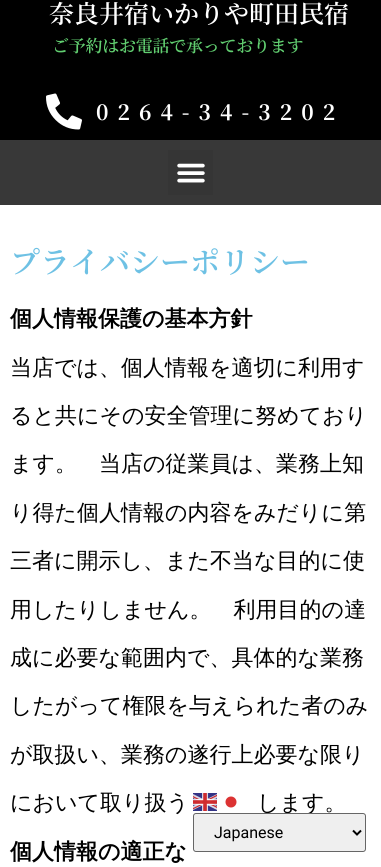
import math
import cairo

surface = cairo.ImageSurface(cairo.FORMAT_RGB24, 381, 867)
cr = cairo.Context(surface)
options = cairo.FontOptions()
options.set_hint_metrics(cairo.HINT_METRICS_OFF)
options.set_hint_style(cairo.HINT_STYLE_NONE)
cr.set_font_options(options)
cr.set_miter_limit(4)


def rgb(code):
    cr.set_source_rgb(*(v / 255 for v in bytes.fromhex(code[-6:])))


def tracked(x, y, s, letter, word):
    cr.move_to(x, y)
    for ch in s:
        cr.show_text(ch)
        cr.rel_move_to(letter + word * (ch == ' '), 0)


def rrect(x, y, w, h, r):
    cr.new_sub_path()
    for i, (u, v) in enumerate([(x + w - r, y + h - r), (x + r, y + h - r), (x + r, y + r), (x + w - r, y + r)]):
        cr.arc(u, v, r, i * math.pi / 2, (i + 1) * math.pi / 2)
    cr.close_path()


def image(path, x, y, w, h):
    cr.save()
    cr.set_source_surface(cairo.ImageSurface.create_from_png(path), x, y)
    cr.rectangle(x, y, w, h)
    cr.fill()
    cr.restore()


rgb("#000000")
cr.paint()
image("img/1.png", 46, 93, 36, 37)
rgb("#383838")
cr.rectangle(0, 140, 381, 65)
cr.fill()
rgb("#353535")
cr.rectangle(168, 150, 45, 45)
cr.fill()
image("img/2.png", 177, 163, 28, 20)
rgb("#ffffff")
cr.rectangle(0, 205, 381, 662)
cr.fill()
image("img/3.png", 193, 793, 24, 18)
cr.set_source_rgba(0.827, 0, 0, 0.8)
cr.arc(231, 802, 5.5, 0, 2 * math.pi)
cr.fill()
cr.select_font_face("Noto Serif JP SemiBold")
cr.set_font_size(25)
rgb("#ffffff")
cr.move_to(49, 23)
cr.show_text("奈良井宿いかりや町田民宿")
cr.set_font_size(17)
rgb("#61ce70")
tracked(52, 52, "ご予約はお電話で承っております", -0.25, 0)
cr.select_font_face("Noto Serif JP", cairo.FONT_SLANT_NORMAL, cairo.FONT_WEIGHT_BOLD)
cr.set_font_size(21)
rgb("#ffffff")
tracked(96, 120, "0264-34-3202", 9, 0)
cr.select_font_face("Noto Serif JP SemiBold")
cr.set_font_size(30)
rgb("#6ec1e4")
cr.move_to(10, 273)
cr.show_text("プライバシーポリシー")
cr.select_font_face("WenQuanYi Zen Hei", cairo.FONT_SLANT_NORMAL, cairo.FONT_WEIGHT_BOLD)
cr.set_font_size(22)
rgb("#000000")
cr.move_to(10, 326)
cr.show_text("個人情報保護の基本方針")
cr.select_font_face("WenQuanYi Zen Hei Medium")
for x, y, s in [
    (10, 375, "当店では、個人情報を適切に利用す"),
    (10, 423, "ると共にその安全管理に努めており"),
    (10, 471, "ます。　当店の従業員は、業務上知"),
    (10, 520, "り得た個人情報の内容をみだりに第"),
    (10, 568, "三者に開示し、また不当な目的に使"),
    (10, 617, "用したりしません。　利用目的の達"),
    (10, 665, "成に必要な範囲内で、具体的な業務"),
    (10, 713, "したがって権限を与えられた者のみ"),
    (10, 762, "が取扱い、業務の遂行上必要な限り"),
    (10, 810, "において取り扱う"),
    (257, 810, "します。"),
]:
    cr.move_to(x, y)
    cr.show_text(s)
cr.select_font_face("WenQuanYi Zen Hei", cairo.FONT_SLANT_NORMAL, cairo.FONT_WEIGHT_BOLD)
cr.move_to(10, 859)
cr.show_text("個人情報の適正な")
rgb("#efefef")
rrect(193.5, 813.5, 172, 38, 2.5)
cr.fill_preserve()
rgb("#666666")
cr.set_line_width(1)
cr.stroke()
cr.new_path()
cr.move_to(353, 830.5)
cr.line_to(357, 834.5)
cr.line_to(361, 830.5)
rgb("#000000")
cr.set_line_width(2)
cr.stroke()
cr.select_font_face("Roboto")
cr.set_font_size(16)
cr.move_to(214, 838)
cr.show_text("Japanese")
surface.write_to_png("page.png")
